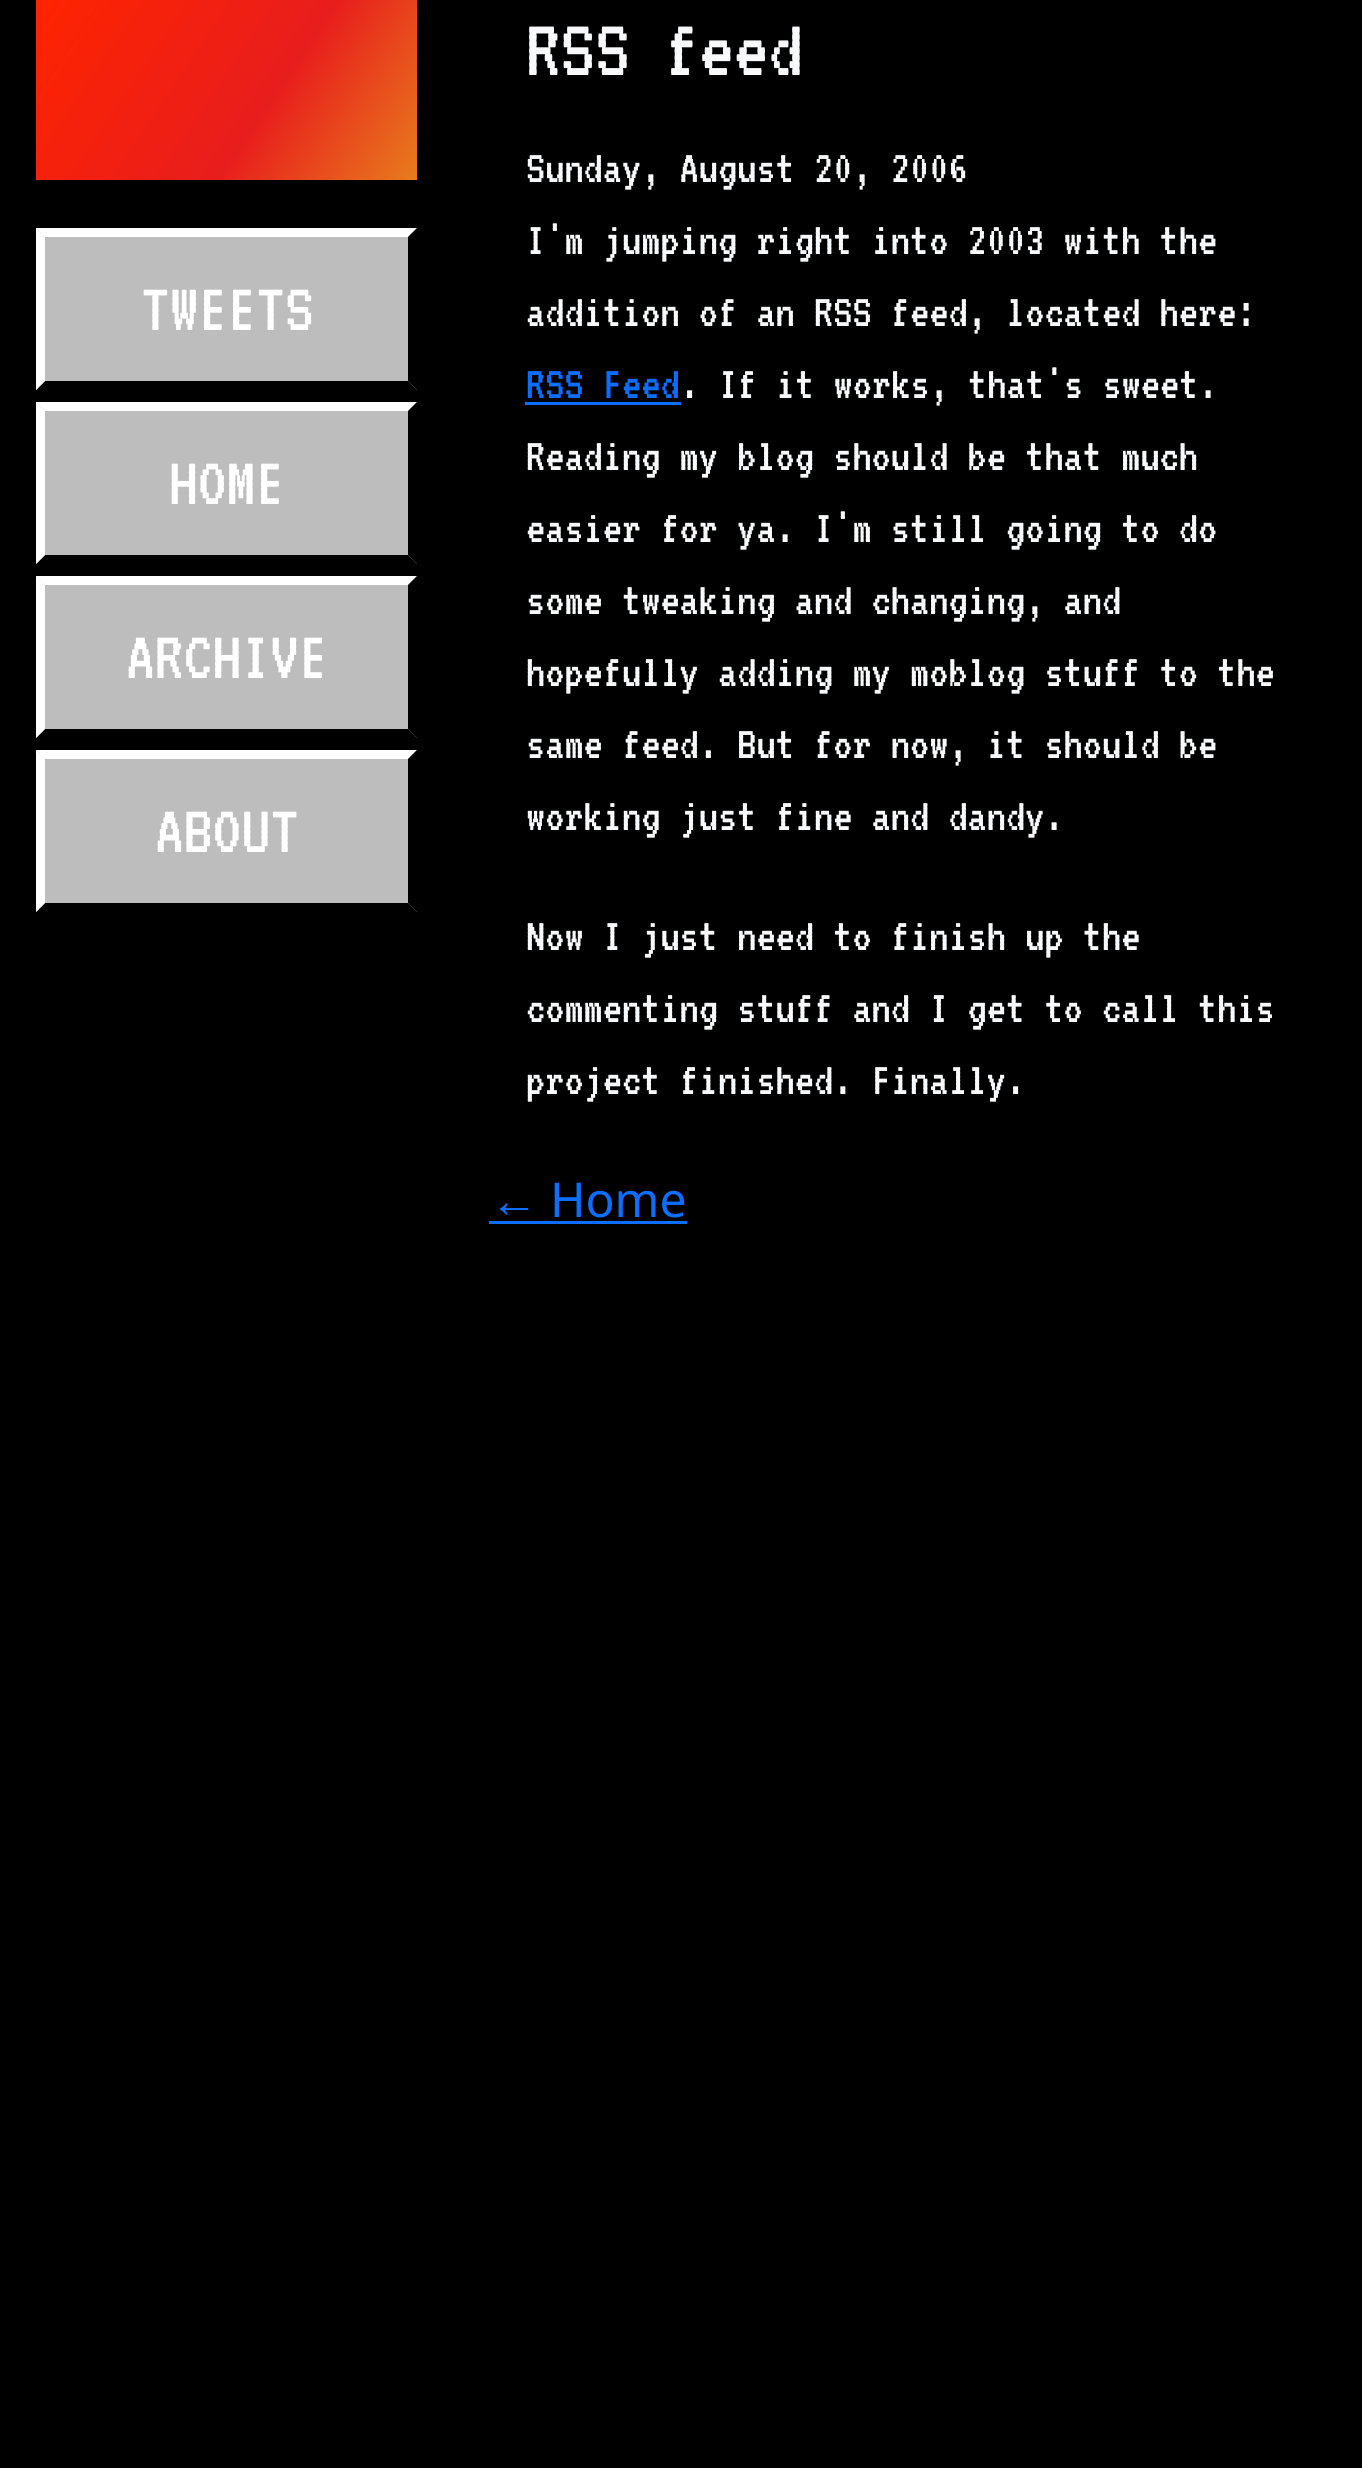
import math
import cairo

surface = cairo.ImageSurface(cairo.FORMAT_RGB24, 1362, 2468)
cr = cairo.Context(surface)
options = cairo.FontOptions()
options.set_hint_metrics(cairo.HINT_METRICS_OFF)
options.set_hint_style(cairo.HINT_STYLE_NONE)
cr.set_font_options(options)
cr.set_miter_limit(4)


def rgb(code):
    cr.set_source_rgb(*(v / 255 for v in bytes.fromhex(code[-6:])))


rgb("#000000")
cr.paint()
gradient = cairo.LinearGradient(125, -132, 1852, 1032)
gradient.add_color_stop_rgba(0, 1, 0.141, 0, 1)
gradient.add_color_stop_rgba(0.12, 0.91, 0.114, 0.114, 1)
gradient.add_color_stop_rgba(0.25, 0.91, 0.718, 0.114, 1)
gradient.add_color_stop_rgba(0.38, 0.89, 0.91, 0.114, 1)
gradient.add_color_stop_rgba(0.5, 0.114, 0.91, 0.251, 1)
gradient.add_color_stop_rgba(0.62, 0.114, 0.867, 0.91, 1)
gradient.add_color_stop_rgba(0.75, 0.169, 0.114, 0.91, 1)
gradient.add_color_stop_rgba(0.88, 0.867, 0, 0.953, 1)
gradient.add_color_stop_rgba(1, 0.867, 0, 0.953, 1)
cr.set_source(gradient)
cr.rectangle(36, 0, 381, 180)
cr.fill()
rgb("#bdbdbd")
cr.rectangle(36, 228, 381, 162)
cr.fill()
rgb("#ffffff")
cr.new_path()
cr.move_to(36, 228)
cr.line_to(417, 228)
cr.line_to(408, 237)
cr.line_to(45, 237)
cr.close_path()
cr.fill()
rgb("#000000")
cr.new_path()
cr.move_to(417, 228)
cr.line_to(417, 390)
cr.line_to(408, 381)
cr.line_to(408, 237)
cr.close_path()
cr.fill()
cr.new_path()
cr.move_to(417, 390)
cr.line_to(36, 390)
cr.line_to(45, 381)
cr.line_to(408, 381)
cr.close_path()
cr.fill()
rgb("#ffffff")
cr.new_path()
cr.move_to(36, 390)
cr.line_to(36, 228)
cr.line_to(45, 237)
cr.line_to(45, 381)
cr.close_path()
cr.fill()
rgb("#bdbdbd")
cr.rectangle(36, 402, 381, 162)
cr.fill()
rgb("#ffffff")
cr.new_path()
cr.move_to(36, 402)
cr.line_to(417, 402)
cr.line_to(408, 411)
cr.line_to(45, 411)
cr.close_path()
cr.fill()
rgb("#000000")
cr.new_path()
cr.move_to(417, 402)
cr.line_to(417, 564)
cr.line_to(408, 555)
cr.line_to(408, 411)
cr.close_path()
cr.fill()
cr.new_path()
cr.move_to(417, 564)
cr.line_to(36, 564)
cr.line_to(45, 555)
cr.line_to(408, 555)
cr.close_path()
cr.fill()
rgb("#ffffff")
cr.new_path()
cr.move_to(36, 564)
cr.line_to(36, 402)
cr.line_to(45, 411)
cr.line_to(45, 555)
cr.close_path()
cr.fill()
rgb("#bdbdbd")
cr.rectangle(36, 576, 381, 162)
cr.fill()
rgb("#ffffff")
cr.new_path()
cr.move_to(36, 576)
cr.line_to(417, 576)
cr.line_to(408, 585)
cr.line_to(45, 585)
cr.close_path()
cr.fill()
rgb("#000000")
cr.new_path()
cr.move_to(417, 576)
cr.line_to(417, 738)
cr.line_to(408, 729)
cr.line_to(408, 585)
cr.close_path()
cr.fill()
cr.new_path()
cr.move_to(417, 738)
cr.line_to(36, 738)
cr.line_to(45, 729)
cr.line_to(408, 729)
cr.close_path()
cr.fill()
rgb("#ffffff")
cr.new_path()
cr.move_to(36, 738)
cr.line_to(36, 576)
cr.line_to(45, 585)
cr.line_to(45, 729)
cr.close_path()
cr.fill()
rgb("#bdbdbd")
cr.rectangle(36, 750, 381, 162)
cr.fill()
rgb("#ffffff")
cr.new_path()
cr.move_to(36, 750)
cr.line_to(417, 750)
cr.line_to(408, 759)
cr.line_to(45, 759)
cr.close_path()
cr.fill()
rgb("#000000")
cr.new_path()
cr.move_to(417, 750)
cr.line_to(417, 912)
cr.line_to(408, 903)
cr.line_to(408, 759)
cr.close_path()
cr.fill()
cr.new_path()
cr.move_to(417, 912)
cr.line_to(36, 912)
cr.line_to(45, 903)
cr.line_to(408, 903)
cr.close_path()
cr.fill()
rgb("#ffffff")
cr.new_path()
cr.move_to(36, 912)
cr.line_to(36, 750)
cr.line_to(45, 759)
cr.line_to(45, 903)
cr.close_path()
cr.fill()
rgb("#0d6efd")
cr.rectangle(525, 402, 156, 3)
cr.fill()
cr.rectangle(489, 1221, 198, 3)
cr.fill()
cr.select_font_face("VT323")
cr.set_font_size(72)
rgb("#ffffff")
for x, y, s in [
    (141, 330, "TWEETS"),
    (169, 504, "HOME"),
    (126, 678, "ARCHIVE"),
    (155, 852, "ABOUT"),
]:
    cr.move_to(x, y)
    cr.show_text(s)
cr.set_font_size(86.5)
rgb("#f8f9fa")
cr.move_to(526, 75)
cr.show_text("RSS feed")
cr.set_font_size(48)
for x, y, s in [
    (526, 182, "Sunday, August 20, 2006"),
    (526, 254, "I'm jumping right into 2003 with the"),
    (526, 326, "addition of an RSS feed, located here:"),
]:
    cr.move_to(x, y)
    cr.show_text(s)
rgb("#0d6efd")
cr.move_to(526, 398)
cr.show_text("RSS Feed")
rgb("#f8f9fa")
for x, y, s in [
    (680, 398, ". If it works, that's sweet."),
    (526, 470, "Reading my blog should be that much"),
    (526, 542, "easier for ya. I'm still going to do"),
    (526, 614, "some tweaking and changing, and"),
    (526, 686, "hopefully adding my moblog stuff to the"),
    (526, 758, "same feed. But for now, it should be"),
    (526, 830, "working just fine and dandy."),
    (526, 950, "Now I just need to finish up the"),
    (526, 1022, "commenting stuff and I get to call this"),
    (526, 1094, "project finished. Finally."),
]:
    cr.move_to(x, y)
    cr.show_text(s)
cr.select_font_face("Liberation Sans")
rgb("#0d6efd")
cr.move_to(490, 1217)
cr.show_text("←")
cr.select_font_face("Noto Sans")
cr.move_to(550, 1217)
cr.show_text("Home")
surface.write_to_png("page.png")
